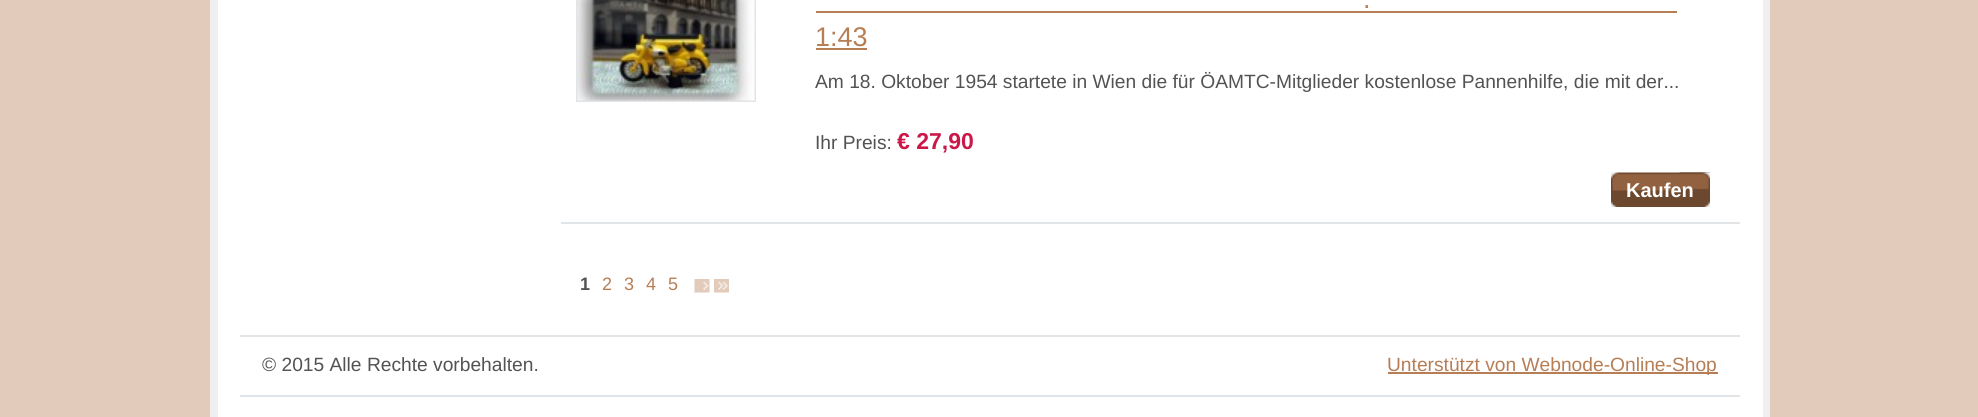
import math
import cairo

surface = cairo.ImageSurface(cairo.FORMAT_RGB24, 1978, 417)
cr = cairo.Context(surface)
options = cairo.FontOptions()
options.set_hint_metrics(cairo.HINT_METRICS_OFF)
options.set_hint_style(cairo.HINT_STYLE_NONE)
cr.set_font_options(options)
cr.set_miter_limit(4)


def rgb(code):
    cr.set_source_rgb(*(v / 255 for v in bytes.fromhex(code[-6:])))


def image(path, x, y, w, h):
    cr.save()
    cr.set_source_surface(cairo.ImageSurface.create_from_png(path), x, y)
    cr.rectangle(x, y, w, h)
    cr.fill()
    cr.restore()


rgb("#e2cbbb")
cr.paint()
for x, y, w, h, color in [
    (218, 0, 1545, 417, "#ffffff"),
    (1763, 0, 7, 417, "#efefef"),
    (210, 0, 8, 417, "#efefef"),
    (561, 222, 1179, 2, "#e2e5e8"),
]:
    rgb(color)
    cr.rectangle(x, y, w, h)
    cr.fill()
cr.rectangle(577, -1, 178, 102)
cr.stroke()
image("img/1.png", 577, 0, 178, 101)
rgb("#b77e56")
cr.rectangle(816, 11, 861, 2)
cr.fill()
cr.rectangle(816, 48, 51, 2)
cr.fill()
image("img/2.png", 1611, 172, 99, 19)
image("img/3.png", 1679, 172, 31, 19)
image("img/4.png", 1611, 190, 69, 17)
image("img/5.png", 1679, 188, 31, 19)
image("img/6.png", 694, 279, 16, 14)
image("img/7.png", 714, 279, 15, 14)
for x, y, w, h, color in [
    (240, 335, 1500, 2, "#e2e5e8"),
    (240, 395, 1500, 2, "#e2e5e8"),
    (1388, 372, 330, 2, "#b77e56"),
]:
    rgb(color)
    cr.rectangle(x, y, w, h)
    cr.fill()
cr.select_font_face("Liberation Sans")
cr.set_font_size(27)
cr.move_to(1363, 8)
cr.show_text(".")
cr.move_to(815, 46)
cr.show_text("1:43")
cr.set_font_size(19.2)
rgb("#535353")
cr.move_to(815, 88)
cr.show_text("Am 18. Oktober 1954 startete in Wien die für ÖAMTC-Mitglieder kostenlose Pannenhilfe, die mit der...")
cr.move_to(815, 149)
cr.show_text("Ihr Preis:")
cr.select_font_face("Liberation Sans", cairo.FONT_SLANT_NORMAL, cairo.FONT_WEIGHT_BOLD)
cr.set_font_size(23)
rgb("#cc1749")
cr.move_to(897, 149)
cr.show_text("€ 27,90")
cr.set_font_size(20)
rgb("#ffffff")
cr.move_to(1626, 197)
cr.show_text("Kaufen")
cr.set_font_size(18)
rgb("#535353")
cr.move_to(580, 290)
cr.show_text("1")
cr.select_font_face("Liberation Sans")
rgb("#b77e56")
for x, y, s in [
    (602, 290, "2"),
    (624, 290, "3"),
    (646, 290, "4"),
    (668, 290, "5"),
]:
    cr.move_to(x, y)
    cr.show_text(s)
cr.set_font_size(19.2)
rgb("#535353")
cr.move_to(262, 371)
cr.show_text("© 2015 Alle Rechte vorbehalten.")
rgb("#b77e56")
cr.move_to(1387, 371)
cr.show_text("Unterstützt von Webnode-Online-Shop")
surface.write_to_png("page.png")
